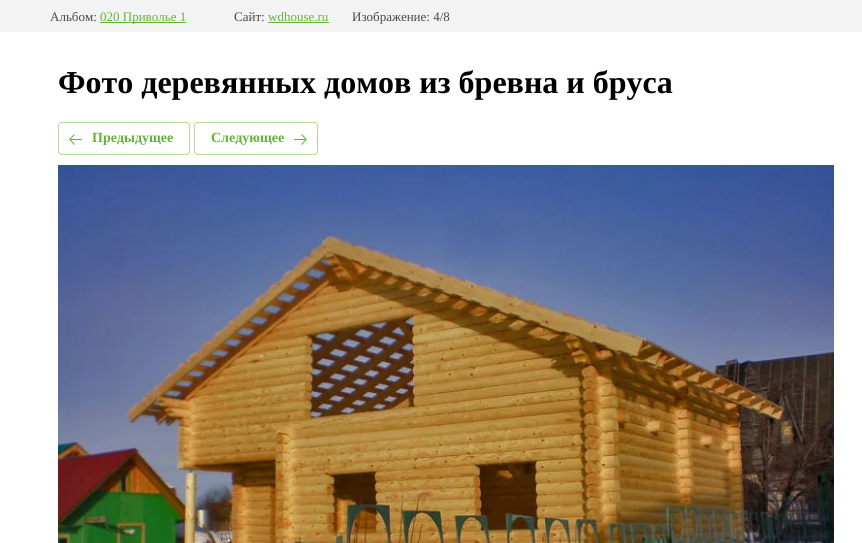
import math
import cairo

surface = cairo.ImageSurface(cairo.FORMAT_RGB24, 862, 543)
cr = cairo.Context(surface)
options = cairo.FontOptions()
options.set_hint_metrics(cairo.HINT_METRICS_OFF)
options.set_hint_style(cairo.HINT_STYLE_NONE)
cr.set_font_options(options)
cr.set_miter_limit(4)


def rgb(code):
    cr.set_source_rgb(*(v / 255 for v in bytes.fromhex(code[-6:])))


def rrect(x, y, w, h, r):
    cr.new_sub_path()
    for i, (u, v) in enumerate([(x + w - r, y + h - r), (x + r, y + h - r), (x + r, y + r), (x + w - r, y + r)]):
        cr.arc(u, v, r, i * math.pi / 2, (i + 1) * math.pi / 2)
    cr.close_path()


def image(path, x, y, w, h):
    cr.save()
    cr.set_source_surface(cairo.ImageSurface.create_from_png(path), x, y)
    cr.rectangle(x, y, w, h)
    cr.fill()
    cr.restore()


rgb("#ffffff")
cr.paint()
for x, y, w, h, color in [
    (0, 0, 862, 32, "#f3f3f3"),
    (100, 22, 86, 1, "#63b435"),
    (268, 22, 61, 1, "#63b435"),
]:
    rgb(color)
    cr.rectangle(x, y, w, h)
    cr.fill()
rrect(58.5, 122.5, 131, 32, 3.5)
rgb("#b1da9a")
cr.set_line_width(1)
cr.stroke()
image("img/1.png", 69, 134, 13, 11)
rrect(194.5, 122.5, 123, 32, 3.5)
cr.stroke()
image("img/2.png", 294, 134, 13, 11)
image("img/3.png", 58, 165, 776, 378)
cr.select_font_face("Liberation Serif")
cr.set_font_size(13)
rgb("#484848")
cr.move_to(50, 21)
cr.show_text("Альбом:")
rgb("#63b435")
cr.move_to(100, 21)
cr.show_text("020 Приволье 1")
rgb("#484848")
cr.move_to(234, 21)
cr.show_text("Сайт:")
rgb("#63b435")
cr.move_to(268, 21)
cr.show_text("wdhouse.ru")
rgb("#484848")
cr.move_to(352, 21)
cr.show_text("Изображение: 4/8")
cr.select_font_face("Liberation Serif", cairo.FONT_SLANT_NORMAL, cairo.FONT_WEIGHT_BOLD)
cr.set_font_size(32)
rgb("#000000")
cr.move_to(58, 93)
cr.show_text("Фото деревянных домов из бревна и бруса")
cr.set_font_size(14)
rgb("#63b435")
cr.move_to(92, 142)
cr.show_text("Предыдущее")
cr.move_to(211, 142)
cr.show_text("Следующее")
surface.write_to_png("page.png")
